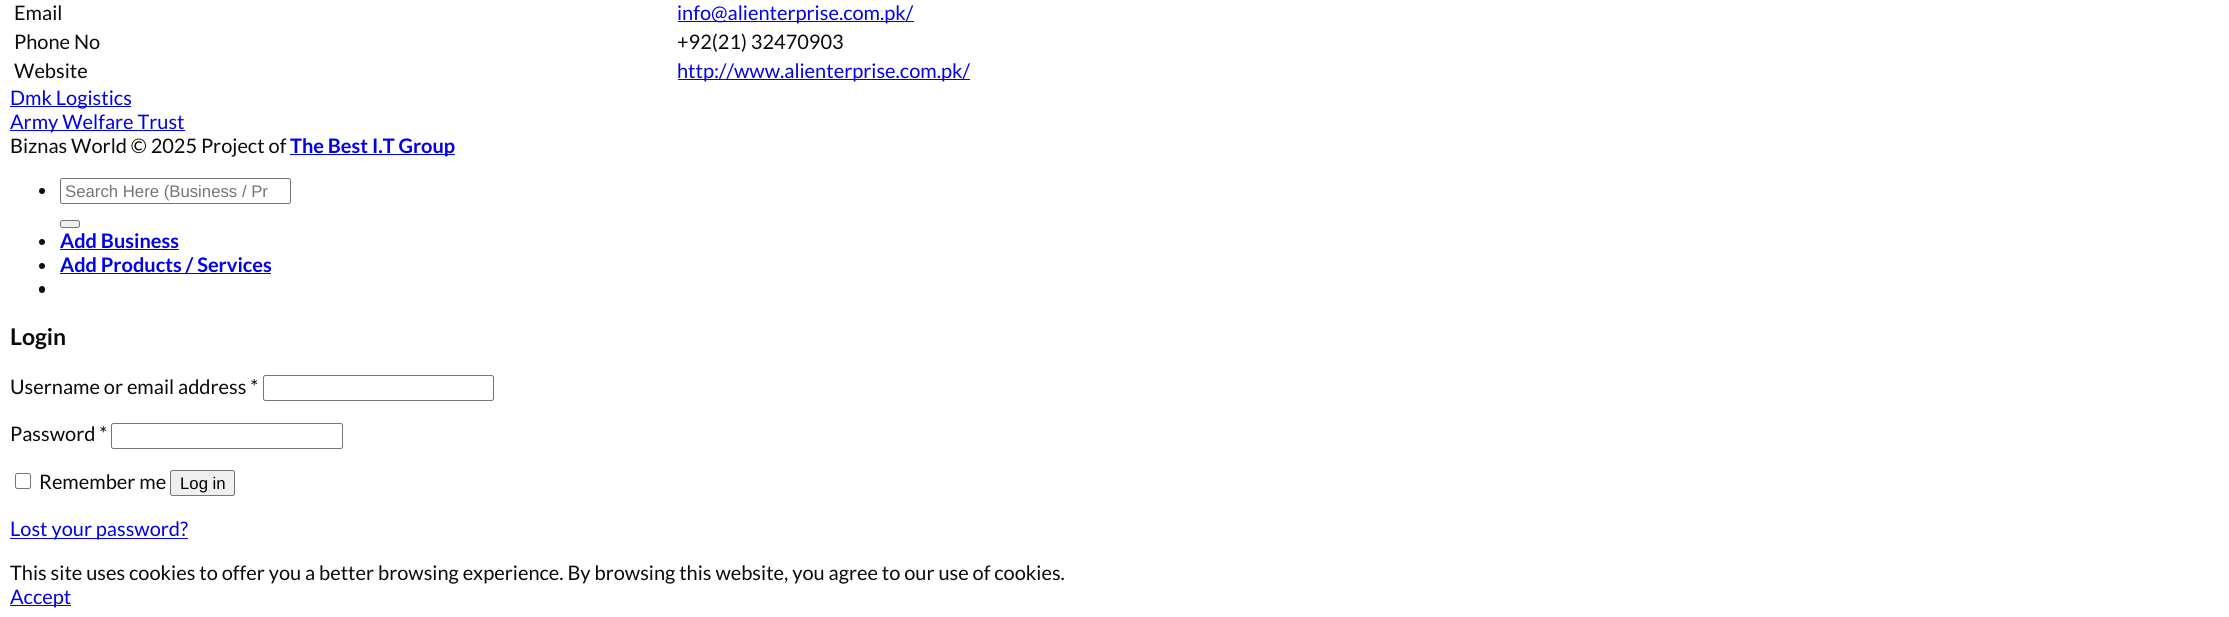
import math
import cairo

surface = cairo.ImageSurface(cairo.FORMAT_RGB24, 2229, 617)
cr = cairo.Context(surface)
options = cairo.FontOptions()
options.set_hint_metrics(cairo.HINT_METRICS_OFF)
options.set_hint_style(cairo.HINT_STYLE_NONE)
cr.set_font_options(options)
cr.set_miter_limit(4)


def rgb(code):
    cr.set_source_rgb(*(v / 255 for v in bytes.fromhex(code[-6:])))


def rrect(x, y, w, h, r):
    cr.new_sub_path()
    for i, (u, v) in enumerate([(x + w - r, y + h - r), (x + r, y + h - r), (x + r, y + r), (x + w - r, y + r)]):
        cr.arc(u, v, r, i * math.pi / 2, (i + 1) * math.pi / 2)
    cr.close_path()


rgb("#ffffff")
cr.paint()
for x, y, w, h, color in [
    (678, 21, 236, 1, "#0000ee"),
    (678, 79, 292, 1, "#0000ee"),
    (10, 106, 121, 1, "#0000ee"),
    (10, 130, 175, 1, "#0000ee"),
    (290, 154, 165, 1, "#0000ee"),
]:
    rgb(color)
    cr.rectangle(x, y, w, h)
    cr.fill()
rgb("#0a0a0a")
cr.arc(42, 191, 3, 0, 2 * math.pi)
cr.fill()
rrect(60.5, 178.5, 230, 25, 2)
rgb("#767676")
cr.set_line_width(1)
cr.stroke()
rgb("#efefef")
rrect(60.5, 220.5, 19, 7, 2)
cr.fill_preserve()
rgb("#767676")
cr.stroke()
rgb("#0a0a0a")
cr.arc(42, 242, 3, 0, 2 * math.pi)
cr.fill()
rgb("#0000ee")
cr.rectangle(60, 249, 119, 1)
cr.fill()
rgb("#0a0a0a")
cr.arc(42, 266, 3, 0, 2 * math.pi)
cr.fill()
rgb("#0000ee")
cr.rectangle(60, 273, 211, 1)
cr.fill()
rgb("#0a0a0a")
rrect(39, 286, 6, 7, 3)
cr.fill()
rrect(263.5, 375.5, 230, 25, 2)
rgb("#767676")
cr.stroke()
rrect(111.5, 423.5, 231, 25, 2)
cr.stroke()
rrect(15.5, 473.5, 15, 15, 2)
cr.stroke()
rgb("#efefef")
rrect(170.5, 470.5, 64, 25, 2)
cr.fill_preserve()
rgb("#767676")
cr.stroke()
rgb("#0000ee")
cr.rectangle(10, 538, 178, 1)
cr.fill()
cr.rectangle(10, 605, 61, 1)
cr.fill()
cr.select_font_face("Lato")
cr.set_font_size(20)
rgb("#0a0a0a")
cr.move_to(14, 20)
cr.show_text("Email")
rgb("#0000ee")
cr.move_to(677, 20)
cr.show_text("info@alienterprise.com.pk/")
rgb("#0a0a0a")
for x, y, s in [
    (14, 49, "Phone No"),
    (677, 49, "+92(21) 32470903"),
    (14, 78, "Website"),
]:
    cr.move_to(x, y)
    cr.show_text(s)
rgb("#0000ee")
for x, y, s in [
    (677, 78, "http://www.alienterprise.com.pk/"),
    (10, 105, "Dmk Logistics"),
    (10, 129, "Army Welfare Trust"),
]:
    cr.move_to(x, y)
    cr.show_text(s)
rgb("#0a0a0a")
cr.move_to(10, 153)
cr.show_text("Biznas World © 2025 Project of")
cr.select_font_face("Lato", cairo.FONT_SLANT_NORMAL, cairo.FONT_WEIGHT_BOLD)
rgb("#0000ee")
cr.move_to(290, 153)
cr.show_text("The Best I.T Group")
cr.select_font_face("Liberation Sans")
cr.set_font_size(16.75)
rgb("#757575")
cr.move_to(65, 197)
cr.show_text("Search Here (Business / Pr")
cr.select_font_face("Lato", cairo.FONT_SLANT_NORMAL, cairo.FONT_WEIGHT_BOLD)
cr.set_font_size(20)
rgb("#0000ee")
cr.move_to(60, 248)
cr.show_text("Add Business")
cr.move_to(60, 272)
cr.show_text("Add Products / Services")
cr.set_font_size(23)
rgb("#0a0a0a")
cr.move_to(10, 345)
cr.show_text("Login")
cr.select_font_face("Lato")
cr.set_font_size(20)
for x, y, s in [
    (10, 394, "Username or email address *"),
    (10, 441, "Password *"),
    (39, 489, "Remember me"),
]:
    cr.move_to(x, y)
    cr.show_text(s)
cr.select_font_face("Liberation Sans")
cr.set_font_size(16.75)
rgb("#000000")
cr.move_to(180, 489)
cr.show_text("Log in")
cr.select_font_face("Lato")
cr.set_font_size(20)
rgb("#0000ee")
cr.move_to(10, 536)
cr.show_text("Lost your password?")
rgb("#0a0a0a")
cr.move_to(10, 580)
cr.show_text("This site uses cookies to offer you a better browsing experience. By browsing this website, you agree to our use of cookies.")
rgb("#0000ee")
cr.move_to(10, 604)
cr.show_text("Accept")
surface.write_to_png("page.png")
